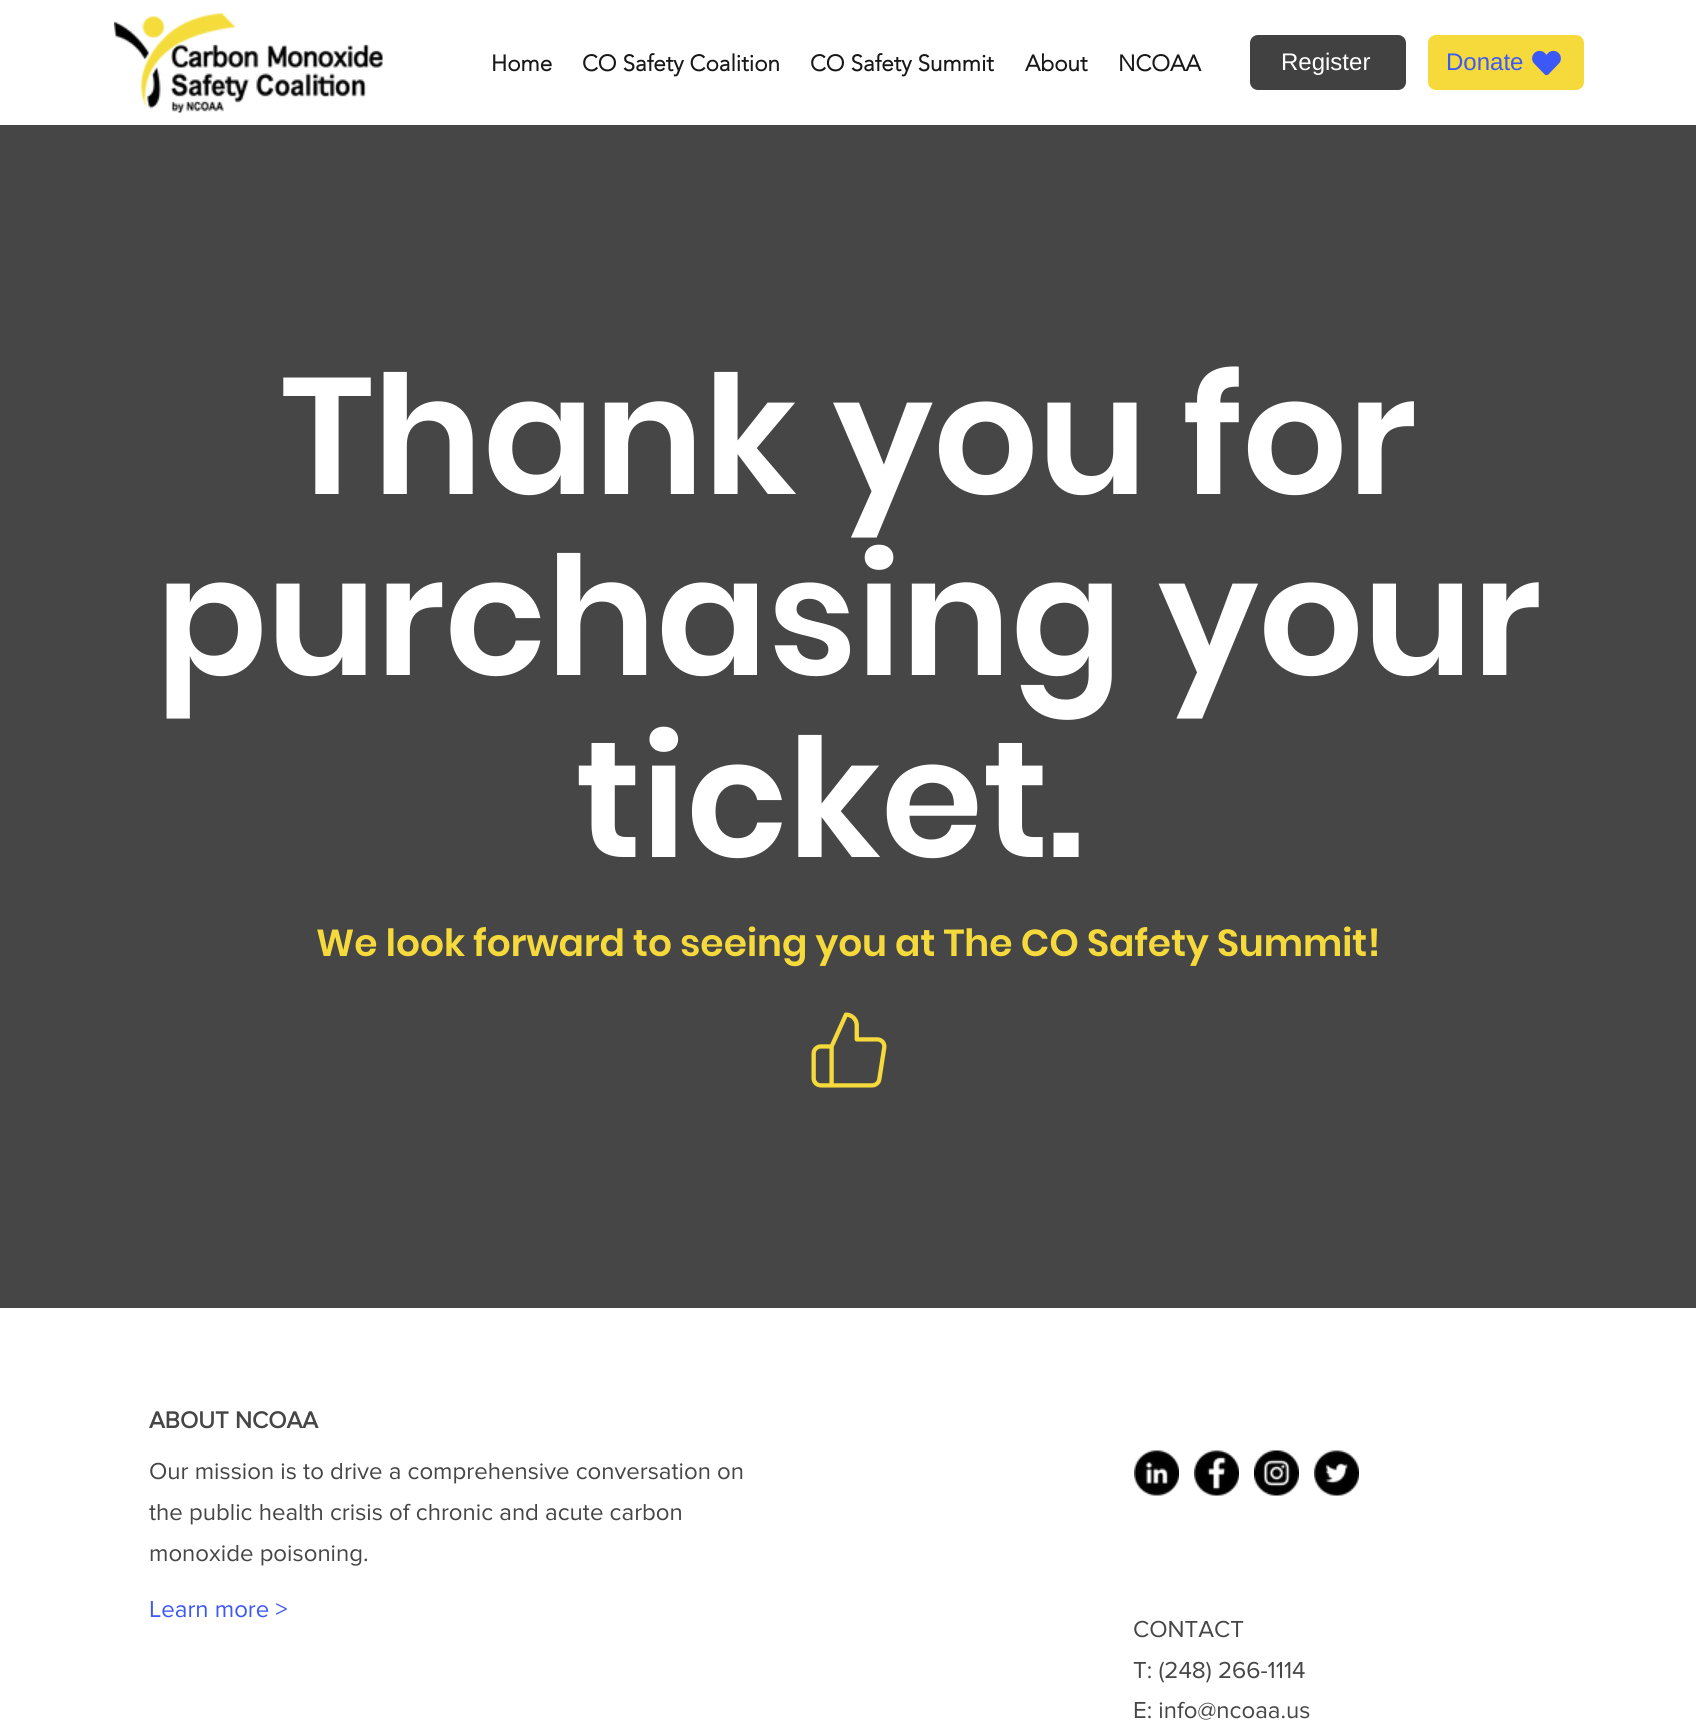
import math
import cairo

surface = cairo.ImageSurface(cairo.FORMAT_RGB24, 1696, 1724)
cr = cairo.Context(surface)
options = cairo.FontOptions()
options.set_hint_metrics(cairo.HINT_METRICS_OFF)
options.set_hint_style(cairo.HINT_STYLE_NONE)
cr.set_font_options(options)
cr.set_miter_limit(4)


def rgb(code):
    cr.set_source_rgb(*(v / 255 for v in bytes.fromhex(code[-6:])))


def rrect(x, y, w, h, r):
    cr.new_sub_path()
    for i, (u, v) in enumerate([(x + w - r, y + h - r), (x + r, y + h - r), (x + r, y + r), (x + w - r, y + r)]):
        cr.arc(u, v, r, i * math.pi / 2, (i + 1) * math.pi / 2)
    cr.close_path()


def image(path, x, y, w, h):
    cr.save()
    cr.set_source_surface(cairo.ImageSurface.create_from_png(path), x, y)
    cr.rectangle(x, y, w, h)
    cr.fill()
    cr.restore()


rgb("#464646")
cr.paint()
rgb("#ffffff")
cr.rectangle(0, 0, 1696, 125)
cr.fill()
image("img/1.png", 114, 13, 269, 100)
rgb("#414141")
rrect(1250, 35, 156, 55, 8)
cr.fill()
rgb("#f6da3c")
rrect(1428, 35, 156, 55, 8)
cr.fill()
image("img/2.png", 1532, 50, 29, 26)
image("img/3.png", 811, 1012, 76, 76)
rgb("#ffffff")
cr.rectangle(0, 1308, 1696, 416)
cr.fill()
image("img/4.png", 1134, 1450, 45, 46)
image("img/5.png", 1194, 1450, 45, 46)
image("img/6.png", 1254, 1450, 45, 46)
image("img/7.png", 1314, 1450, 45, 46)
cr.select_font_face("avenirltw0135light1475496", cairo.FONT_SLANT_NORMAL, cairo.FONT_WEIGHT_BOLD)
cr.set_font_size(22.5)
rgb("#181818")
for x, y, s in [
    (491, 71, "Home"),
    (582, 71, "CO Safety Coalition"),
    (810, 71, "CO Safety Summit"),
    (1025, 71, "About"),
    (1118, 71, "NCOAA"),
]:
    cr.move_to(x, y)
    cr.show_text(s)
cr.select_font_face("Liberation Sans")
cr.set_font_size(24)
rgb("#ffffff")
cr.move_to(1281, 70)
cr.show_text("Register")
rgb("#3c58f6")
cr.move_to(1446, 70)
cr.show_text("Donate")
cr.select_font_face("Poppins SemiBold")
cr.set_font_size(165)
rgb("#ffffff")
for x, y, s in [
    (281, 494, "Thank you for"),
    (156, 675, "purchasing your"),
    (576, 857, "ticket."),
]:
    cr.move_to(x, y)
    cr.show_text(s)
cr.set_font_size(37.5)
rgb("#f6da3c")
cr.move_to(316, 956)
cr.show_text("We look forward to seeing you at The CO Safety Summit!")
cr.select_font_face("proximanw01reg", cairo.FONT_SLANT_NORMAL, cairo.FONT_WEIGHT_BOLD)
cr.set_font_size(24)
rgb("#464646")
cr.move_to(149, 1428)
cr.show_text("ABOUT NCOAA")
cr.select_font_face("proximanw01reg")
for x, y, s in [
    (149, 1479, "Our mission is to drive a comprehensive conversation on"),
    (149, 1520, "the public health crisis of chronic and acute carbon"),
    (149, 1561, "monoxide poisoning."),
]:
    cr.move_to(x, y)
    cr.show_text(s)
rgb("#3c58f6")
cr.move_to(149, 1617)
cr.show_text("Learn more >")
rgb("#464646")
for x, y, s in [
    (1133, 1637, "CONTACT"),
    (1133, 1678, "T: (248) 266-1114"),
    (1133, 1718, "E: info@ncoaa.us"),
]:
    cr.move_to(x, y)
    cr.show_text(s)
surface.write_to_png("page.png")
